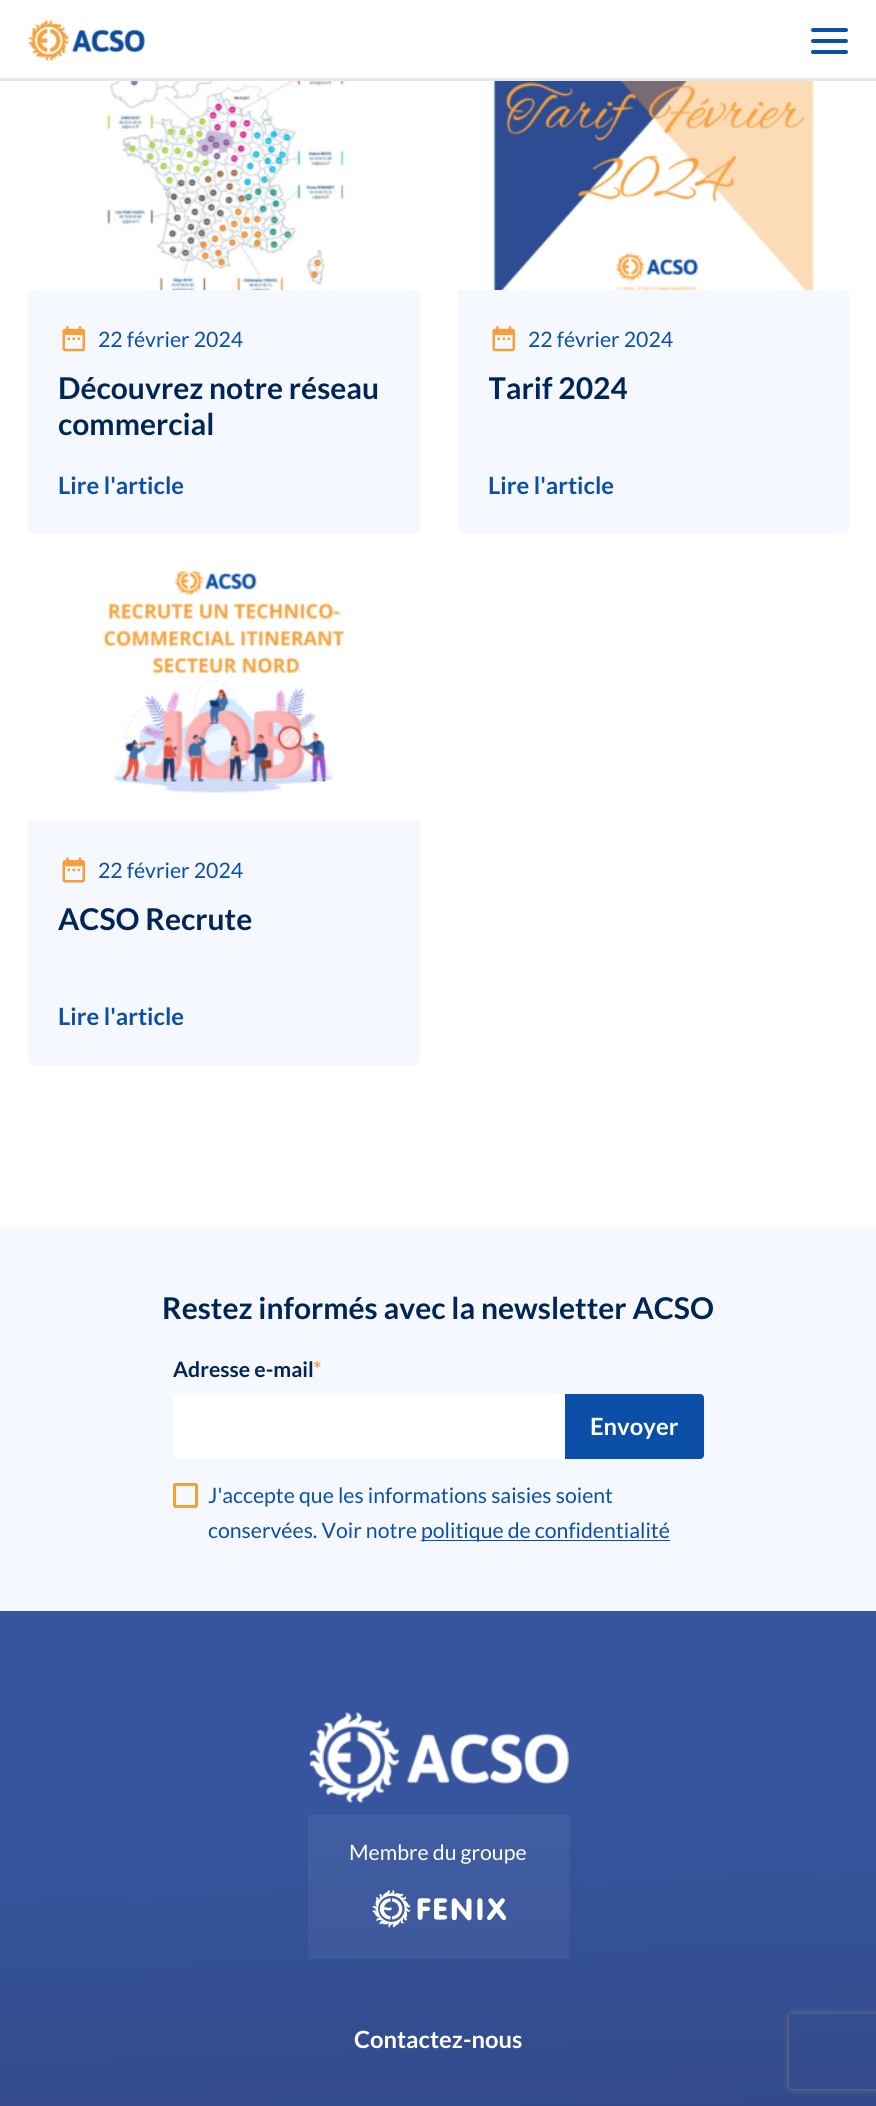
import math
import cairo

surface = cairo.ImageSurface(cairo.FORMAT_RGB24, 876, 2106)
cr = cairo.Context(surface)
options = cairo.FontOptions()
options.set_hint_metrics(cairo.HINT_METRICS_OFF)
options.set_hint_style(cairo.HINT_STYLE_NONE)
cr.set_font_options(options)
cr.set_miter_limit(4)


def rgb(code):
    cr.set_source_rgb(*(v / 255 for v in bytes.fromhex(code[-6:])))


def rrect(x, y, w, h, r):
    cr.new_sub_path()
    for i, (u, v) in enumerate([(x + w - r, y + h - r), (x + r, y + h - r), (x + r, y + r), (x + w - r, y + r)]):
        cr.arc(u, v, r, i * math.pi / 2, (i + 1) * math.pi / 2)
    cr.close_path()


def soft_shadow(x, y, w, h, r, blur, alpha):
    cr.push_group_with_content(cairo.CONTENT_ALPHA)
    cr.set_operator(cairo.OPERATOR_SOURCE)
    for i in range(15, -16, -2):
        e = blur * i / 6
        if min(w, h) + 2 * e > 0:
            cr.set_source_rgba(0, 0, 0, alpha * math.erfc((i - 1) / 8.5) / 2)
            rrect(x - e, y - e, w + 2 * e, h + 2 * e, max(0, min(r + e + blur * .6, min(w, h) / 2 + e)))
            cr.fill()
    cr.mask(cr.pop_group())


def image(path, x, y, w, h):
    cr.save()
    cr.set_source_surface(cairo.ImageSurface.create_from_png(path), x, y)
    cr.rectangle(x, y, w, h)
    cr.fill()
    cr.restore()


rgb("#ffffff")
cr.paint()
rgb("#e6e6e6")
cr.rectangle(0, 78, 876, 3)
cr.fill()
image("img/1.png", 27, 19, 119, 43)
rgb("#0b4fa8")
rrect(811, 28, 37, 4, 2)
cr.fill()
rrect(811, 39, 37, 4, 2)
cr.fill()
rrect(811, 50, 37, 4, 2)
cr.fill()
image("img/2.png", 106, 81, 239, 209)
rgb("#f5f8ff")
cr.new_path()
cr.move_to(28, 290)
cr.line_to(420, 290)
cr.line_to(420, 528)
cr.curve_to(420, 531.5, 417.5, 534, 414, 534)
cr.line_to(34, 534)
cr.curve_to(30.5, 534, 28, 531.5, 28, 528)
cr.close_path()
cr.fill()
image("img/3.png", 62, 326, 23, 26)
image("img/4.png", 493, 81, 321, 209)
cr.new_path()
cr.move_to(458, 290)
cr.line_to(849, 290)
cr.line_to(849, 528)
cr.curve_to(849, 531.5, 846.5, 534, 843, 534)
cr.line_to(464, 534)
cr.curve_to(460.5, 534, 458, 531.5, 458, 528)
cr.close_path()
cr.fill()
image("img/3.png", 492, 326, 23, 26)
image("img/5.png", 103, 571, 242, 222)
cr.new_path()
cr.move_to(28, 821)
cr.line_to(420, 821)
cr.line_to(420, 1059)
cr.curve_to(420, 1062.5, 417.5, 1065, 414, 1065)
cr.line_to(34, 1065)
cr.curve_to(30.5, 1065, 28, 1062.5, 28, 1059)
cr.close_path()
cr.fill()
image("img/6.png", 62, 857, 23, 26)
cr.rectangle(0, 1228, 876, 383)
cr.fill()
rgb("#ffffff")
cr.new_path()
cr.move_to(177, 1394)
cr.line_to(566, 1394)
cr.line_to(566, 1459)
cr.line_to(177, 1459)
cr.curve_to(175, 1459, 173, 1457, 173, 1455)
cr.line_to(173, 1398)
cr.curve_to(173, 1396, 175, 1394, 177, 1394)
cr.close_path()
cr.fill()
rgb("#0b4fa8")
cr.new_path()
cr.move_to(565.5, 1394.5)
cr.line_to(700, 1394.5)
cr.curve_to(702, 1394.5, 703.5, 1396, 703.5, 1398)
cr.line_to(703.5, 1455)
cr.curve_to(703.5, 1457, 702, 1458.5, 700, 1458.5)
cr.line_to(565.5, 1458.5)
cr.close_path()
cr.fill_preserve()
cr.set_line_width(1)
cr.stroke()
rrect(174.5, 1484.5, 22, 22, 1)
rgb("#f7a036")
cr.set_line_width(3)
cr.stroke()
rgb("#0b4fa8")
cr.rectangle(421, 1540, 249, 1)
cr.fill()
gradient = cairo.LinearGradient(476, 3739, 401, 1597)
gradient.add_color_stop_rgba(0.1, 0.129, 0.098, 0.22, 1)
gradient.add_color_stop_rgba(0.9, 0.212, 0.333, 0.62, 1)
cr.set_source(gradient)
cr.rectangle(0, 1611, 876, 495)
cr.fill()
image("img/7.png", 309, 1712, 260, 91)
cr.set_source_rgba(0.906, 0.933, 0.969, 0.06)
cr.rectangle(308, 1815, 262, 144)
cr.fill()
image("img/8.png", 372, 1890, 134, 38)
cr.save()
cr.set_fill_rule(cairo.FILL_RULE_EVEN_ODD)
cr.new_path()
cr.move_to(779, 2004)
cr.line_to(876, 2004)
cr.line_to(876, 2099)
cr.line_to(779, 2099)
cr.close_path()
cr.move_to(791.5, 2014)
cr.line_to(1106.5, 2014)
cr.curve_to(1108, 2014, 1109, 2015, 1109, 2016.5)
cr.line_to(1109, 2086.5)
cr.curve_to(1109, 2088, 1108, 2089, 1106.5, 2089)
cr.line_to(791.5, 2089)
cr.curve_to(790, 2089, 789, 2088, 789, 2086.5)
cr.line_to(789, 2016.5)
cr.curve_to(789, 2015, 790, 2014, 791.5, 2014)
cr.close_path()
cr.clip()
rgb("#808080")
soft_shadow(789, 2014, 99, 75, 2.5, 3, 1)
cr.restore()
cr.select_font_face("Lato")
cr.set_font_size(21.25)
rgb("#0b4fa8")
cr.move_to(98, 347)
cr.show_text("22 février 2024")
cr.select_font_face("Lato", cairo.FONT_SLANT_NORMAL, cairo.FONT_WEIGHT_BOLD)
cr.set_font_size(30)
rgb("#002657")
cr.move_to(58, 399)
cr.show_text("Découvrez notre réseau")
cr.move_to(58, 435)
cr.show_text("commercial")
cr.set_font_size(23.75)
rgb("#0b4fa8")
cr.move_to(58, 494)
cr.show_text("Lire l'article")
cr.select_font_face("Lato")
cr.set_font_size(21.25)
cr.move_to(528, 347)
cr.show_text("22 février 2024")
cr.save()
cr.rectangle(489, 370, 329, 73)
cr.clip()
cr.select_font_face("Lato", cairo.FONT_SLANT_NORMAL, cairo.FONT_WEIGHT_BOLD)
cr.set_font_size(30)
rgb("#002657")
cr.move_to(488, 399)
cr.show_text("Tarif 2024")
cr.restore()
cr.select_font_face("Lato", cairo.FONT_SLANT_NORMAL, cairo.FONT_WEIGHT_BOLD)
cr.set_font_size(23.75)
cr.move_to(488, 494)
cr.show_text("Lire l'article")
cr.select_font_face("Lato")
cr.set_font_size(21.25)
cr.move_to(98, 878)
cr.show_text("22 février 2024")
cr.select_font_face("Lato", cairo.FONT_SLANT_NORMAL, cairo.FONT_WEIGHT_BOLD)
cr.set_font_size(30)
rgb("#002657")
cr.move_to(58, 930)
cr.show_text("ACSO Recrute")
cr.set_font_size(23.75)
rgb("#0b4fa8")
cr.move_to(58, 1025)
cr.show_text("Lire l'article")
cr.set_font_size(30)
rgb("#002657")
cr.move_to(162, 1319)
cr.show_text("Restez informés avec la newsletter ACSO")
cr.set_font_size(21.25)
cr.move_to(173, 1377)
cr.show_text("Adresse e-mail")
rgb("#f7a036")
cr.move_to(313, 1377)
cr.show_text("*")
cr.set_font_size(23.75)
rgb("#ffffff")
cr.move_to(590, 1435)
cr.show_text("Envoyer")
cr.select_font_face("Lato")
cr.set_font_size(21.25)
rgb("#0b4fa8")
for x, y, s in [
    (208, 1503, "J'accepte que les informations saisies soient"),
    (208, 1538, "conservées. Voir notre"),
    (421, 1538, "politique de confidentialité"),
]:
    cr.move_to(x, y)
    cr.show_text(s)
rgb("#ffffff")
cr.move_to(349, 1860)
cr.show_text("Membre du groupe")
cr.select_font_face("Lato", cairo.FONT_SLANT_NORMAL, cairo.FONT_WEIGHT_BOLD)
cr.set_font_size(23.75)
cr.move_to(354, 2048)
cr.show_text("Contactez-nous")
surface.write_to_png("page.png")
